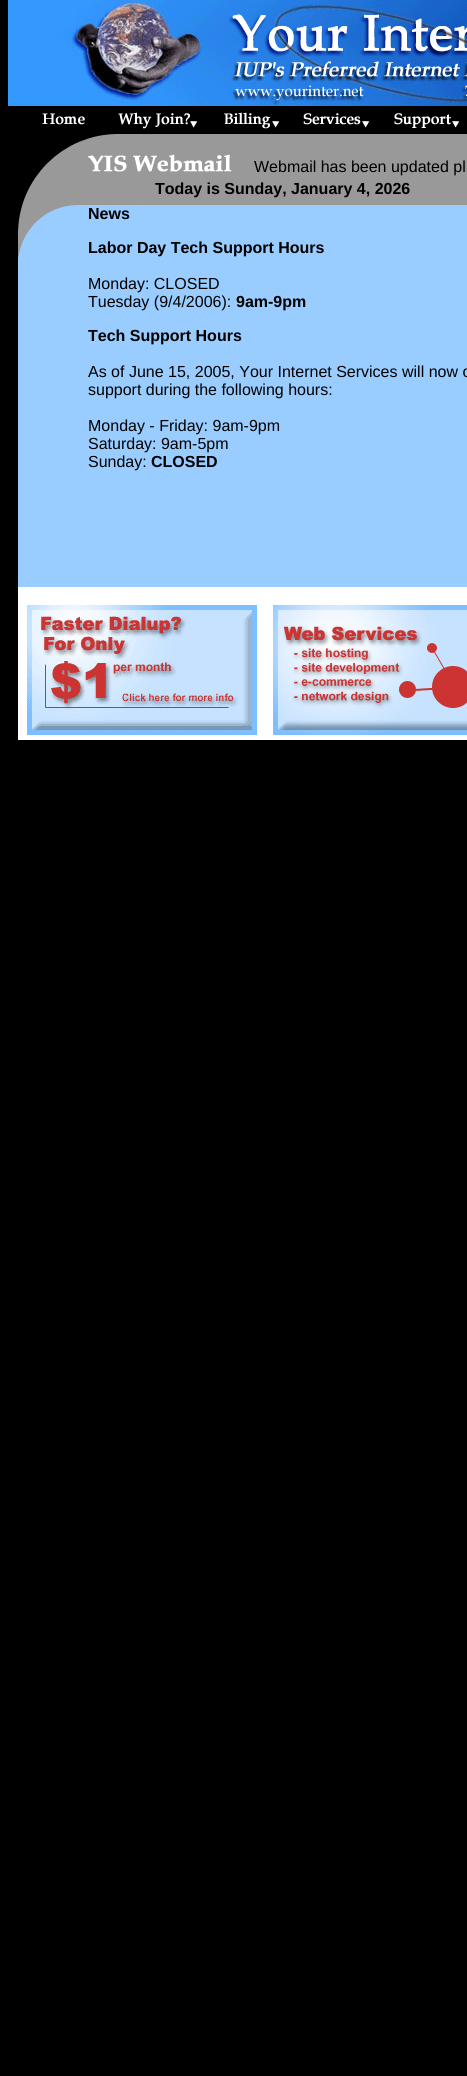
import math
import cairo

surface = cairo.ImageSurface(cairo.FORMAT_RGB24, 467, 2076)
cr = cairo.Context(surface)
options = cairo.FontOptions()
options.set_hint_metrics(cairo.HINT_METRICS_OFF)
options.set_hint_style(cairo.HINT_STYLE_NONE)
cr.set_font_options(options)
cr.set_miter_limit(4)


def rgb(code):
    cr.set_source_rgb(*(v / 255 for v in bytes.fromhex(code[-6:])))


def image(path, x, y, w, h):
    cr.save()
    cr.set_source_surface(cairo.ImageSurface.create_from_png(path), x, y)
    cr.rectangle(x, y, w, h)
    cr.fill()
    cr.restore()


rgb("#000000")
cr.paint()
image("img/1.png", 8, 0, 459, 106)
image("img/2.png", 42, 113, 43, 12)
image("img/3.png", 118, 112, 80, 17)
image("img/4.png", 224, 112, 56, 17)
image("img/5.png", 303, 113, 67, 15)
image("img/6.png", 394, 113, 66, 15)
image("img/7.png", 58, 134, 409, 20)
rgb("#999999")
cr.rectangle(58, 154, 409, 51)
cr.fill()
image("img/8.png", 8, 154, 50, 51)
image("img/9.png", 88, 154, 144, 18)
rgb("#99ccff")
cr.rectangle(18, 205, 449, 382)
cr.fill()
image("img/10.png", 18, 205, 58, 52)
rgb("#ffffff")
cr.rectangle(18, 587, 449, 153)
cr.fill()
image("img/11.png", 27, 605, 230, 130)
image("img/12.png", 273, 605, 194, 130)
cr.select_font_face("Liberation Sans")
cr.set_font_size(16)
rgb("#000000")
cr.move_to(254, 172)
cr.show_text("Webmail has been updated pl")
cr.select_font_face("Liberation Sans", cairo.FONT_SLANT_NORMAL, cairo.FONT_WEIGHT_BOLD)
for x, y, s in [
    (155, 194, "Today is Sunday, January 4, 2026"),
    (88, 219, "News"),
    (88, 253, "Labor Day Tech Support Hours"),
]:
    cr.move_to(x, y)
    cr.show_text(s)
cr.select_font_face("Liberation Sans")
cr.move_to(88, 289)
cr.show_text("Monday: CLOSED")
cr.move_to(88, 307)
cr.show_text("Tuesday (9/4/2006):")
cr.select_font_face("Liberation Sans", cairo.FONT_SLANT_NORMAL, cairo.FONT_WEIGHT_BOLD)
cr.move_to(236, 307)
cr.show_text("9am-9pm")
cr.move_to(88, 341)
cr.show_text("Tech Support Hours")
cr.select_font_face("Liberation Sans")
for x, y, s in [
    (88, 377, "As of June 15, 2005, Your Internet Services will now o"),
    (88, 395, "support during the following hours:"),
    (88, 431, "Monday - Friday: 9am-9pm"),
    (88, 449, "Saturday: 9am-5pm"),
    (88, 467, "Sunday:"),
]:
    cr.move_to(x, y)
    cr.show_text(s)
cr.select_font_face("Liberation Sans", cairo.FONT_SLANT_NORMAL, cairo.FONT_WEIGHT_BOLD)
cr.move_to(151, 467)
cr.show_text("CLOSED")
surface.write_to_png("page.png")
